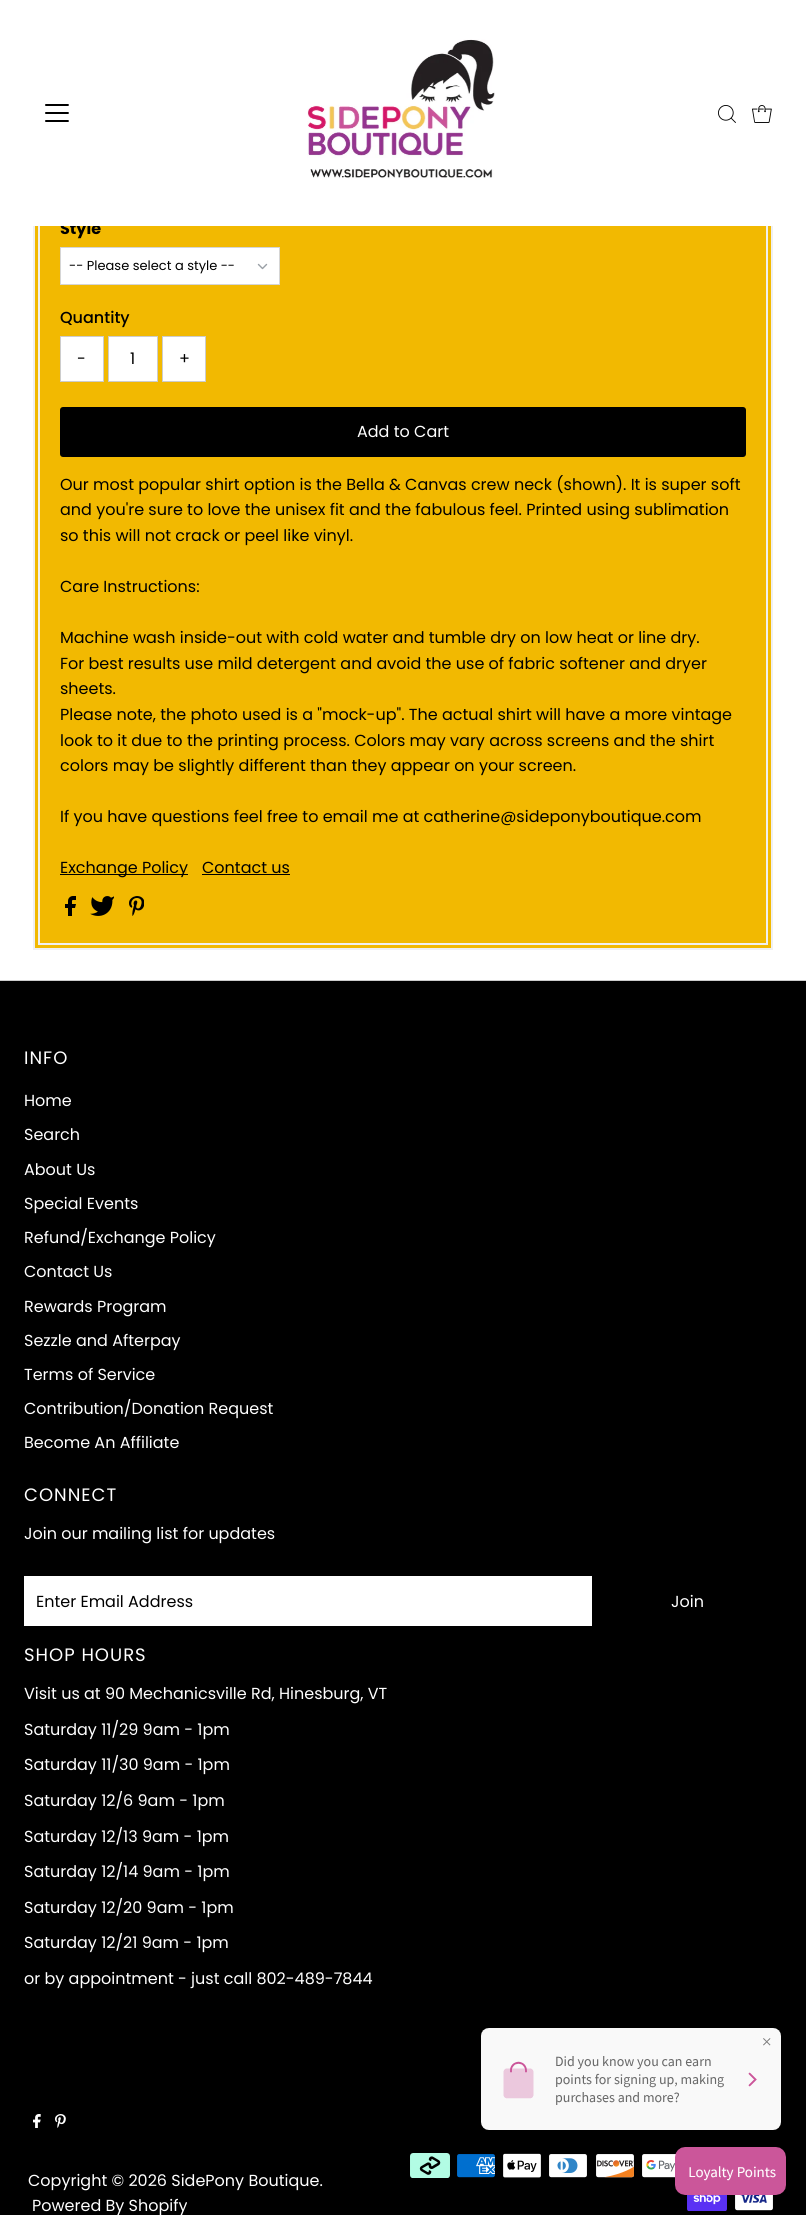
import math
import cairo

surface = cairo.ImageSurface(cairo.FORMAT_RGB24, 806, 2215)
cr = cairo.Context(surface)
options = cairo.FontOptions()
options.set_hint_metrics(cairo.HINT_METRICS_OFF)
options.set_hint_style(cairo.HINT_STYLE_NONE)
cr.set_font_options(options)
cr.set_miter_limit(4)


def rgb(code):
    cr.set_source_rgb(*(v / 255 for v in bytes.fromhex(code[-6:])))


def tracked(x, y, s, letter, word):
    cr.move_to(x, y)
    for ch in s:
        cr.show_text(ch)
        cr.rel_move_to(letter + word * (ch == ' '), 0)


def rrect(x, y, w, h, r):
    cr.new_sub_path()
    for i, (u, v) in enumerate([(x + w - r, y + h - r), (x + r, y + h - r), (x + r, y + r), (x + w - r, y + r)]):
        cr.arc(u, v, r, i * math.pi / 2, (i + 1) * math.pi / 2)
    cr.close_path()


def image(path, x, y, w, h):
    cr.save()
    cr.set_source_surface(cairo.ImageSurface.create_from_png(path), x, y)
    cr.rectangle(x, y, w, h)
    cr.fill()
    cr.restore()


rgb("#ffffff")
cr.paint()
rgb("#f2b901")
cr.rectangle(35, 226, 736, 722)
cr.fill()
cr.rectangle(34, 40, 738, 909)
rgb("#f0f0f0")
cr.stroke()
cr.rectangle(39, 45, 728, 899)
cr.stroke()
rgb("#ffffff")
cr.rectangle(61, 248, 218, 36)
cr.fill()
cr.new_path()
cr.move_to(266.5, 264.5)
cr.line_to(262.5, 268.5)
cr.line_to(258.5, 264.5)
rgb("#9aa0a6")
cr.set_line_width(1.4)
cr.set_line_cap(cairo.LINE_CAP_ROUND)
cr.set_line_join(cairo.LINE_JOIN_ROUND)
cr.stroke()
cr.rectangle(60.5, 247.5, 219, 37)
rgb("#d5d5d5")
cr.set_line_width(1)
cr.set_line_cap(cairo.LINE_CAP_BUTT)
cr.set_line_join(cairo.LINE_JOIN_MITER)
cr.stroke()
rgb("#ffffff")
cr.rectangle(60.5, 336.5, 43, 45)
cr.fill_preserve()
rgb("#cccccc")
cr.stroke()
rgb("#ffffff")
cr.rectangle(108.5, 336.5, 49, 45)
cr.fill_preserve()
rgb("#cccccc")
cr.stroke()
rgb("#ffffff")
cr.rectangle(162.5, 336.5, 43, 45)
cr.fill_preserve()
rgb("#cccccc")
cr.stroke()
rgb("#000000")
rrect(60, 407, 686, 50, 3)
cr.fill()
cr.rectangle(60, 874, 128, 1)
cr.fill()
cr.rectangle(202, 874, 88, 1)
cr.fill()
image("img/5.png", 65, 896, 11, 20)
image("img/6.png", 90, 896, 24, 20)
image("img/7.png", 129, 896, 15, 20)
for x, y, w, h, color in [
    (0, 981, 806, 1234, "#000000"),
    (0, 980, 806, 1, "#cccccc"),
    (24, 1576, 568, 50, "#ffffff"),
]:
    rgb(color)
    cr.rectangle(x, y, w, h)
    cr.fill()
image("img/8.png", 33, 2114, 8, 14)
image("img/9.png", 55, 2114, 11, 14)
image("img/10.png", 410, 2153, 40, 25)
image("img/11.png", 457, 2154, 38, 24)
image("img/12.png", 503, 2153, 38, 25)
image("img/13.png", 549, 2154, 38, 24)
image("img/14.png", 596, 2154, 38, 24)
image("img/15.png", 642, 2154, 34, 24)
image("img/16.png", 687, 2195, 40, 16)
image("img/17.png", 735, 2195, 38, 16)
image("img/18.png", 481, 2028, 300, 102)
image("img/19.png", 675, 2147, 111, 48)
cr.select_font_face("Poppins", cairo.FONT_SLANT_NORMAL, cairo.FONT_WEIGHT_BOLD)
cr.set_font_size(16)
rgb("#000000")
cr.move_to(60, 234)
cr.show_text("Style")
rgb("#ffffff")
cr.rectangle(33, 39, 740, 187)
cr.fill()
image("img/2.png", 307, 39, 188, 141)
image("img/4.png", 752, 105, 20, 18)
image("img/3.png", 718, 105, 18, 18)
image("img/1.png", 45, 104, 24, 18)
cr.select_font_face("Poppins")
cr.set_font_size(13)
rgb("#000000")
cr.move_to(69, 270)
cr.show_text("-- Please select a style --")
cr.select_font_face("Poppins Medium")
cr.set_font_size(16)
cr.move_to(60, 323)
cr.show_text("Quantity")
cr.select_font_face("Poppins")
for x, y, s in [
    (77, 364, "-"),
    (130, 364, "1"),
    (179, 364, "+"),
]:
    cr.move_to(x, y)
    cr.show_text(s)
rgb("#ffffff")
cr.move_to(357, 437)
cr.show_text("Add to Cart")
rgb("#000000")
for x, y, s in [
    (60, 490, "Our most popular shirt option is the Bella & Canvas crew neck (shown). It is super soft"),
    (60, 515, "and you're sure to love the unisex fit and the fabulous feel. Printed using sublimation"),
    (60, 541, "so this will not crack or peel like vinyl."),
    (60, 592, "Care Instructions:"),
    (60, 643, "Machine wash inside-out with cold water and tumble dry on low heat or line dry."),
    (60, 669, "For best results use mild detergent and avoid the use of fabric softener and dryer"),
    (60, 694, "sheets."),
    (60, 720, "Please note, the photo used is a \"mock-up\". The actual shirt will have a more vintage"),
    (60, 746, "look to it due to the printing process. Colors may vary across screens and the shirt"),
    (60, 771, "colors may be slightly different than they appear on your screen."),
    (60, 822, "If you have questions feel free to email me at catherine@sideponyboutique.com"),
    (60, 873, "Exchange Policy"),
    (202, 873, "Contact us"),
]:
    cr.move_to(x, y)
    cr.show_text(s)
cr.set_font_size(18)
rgb("#ffffff")
tracked(24, 1064, "INFO", 1, 0)
cr.set_font_size(16)
for x, y, s in [
    (24, 1106, "Home"),
    (24, 1140, "Search"),
    (24, 1175, "About Us"),
    (24, 1209, "Special Events"),
    (24, 1243, "Refund/Exchange Policy"),
    (24, 1277, "Contact Us"),
    (24, 1312, "Rewards Program"),
    (24, 1346, "Sezzle and Afterpay"),
    (24, 1380, "Terms of Service"),
    (24, 1414, "Contribution/Donation Request"),
    (24, 1448, "Become An Affiliate"),
]:
    cr.move_to(x, y)
    cr.show_text(s)
cr.set_font_size(18)
tracked(24, 1501, "CONNECT", 1, 0)
cr.set_font_size(16)
cr.move_to(24, 1539)
cr.show_text("Join our mailing list for updates")
rgb("#000000")
cr.move_to(36, 1607)
cr.show_text("Enter Email Address")
rgb("#ffffff")
cr.move_to(671, 1607)
cr.show_text("Join")
cr.set_font_size(18)
tracked(24, 1661, "SHOP HOURS", 1, 0)
cr.set_font_size(16)
for x, y, s in [
    (24, 1699, "Visit us at 90 Mechanicsville Rd, Hinesburg, VT"),
    (24, 1735, "Saturday 11/29 9am - 1pm"),
    (24, 1770, "Saturday 11/30 9am - 1pm"),
    (24, 1806, "Saturday 12/6 9am - 1pm"),
    (24, 1842, "Saturday 12/13 9am - 1pm"),
    (24, 1877, "Saturday 12/14 9am - 1pm"),
    (24, 1913, "Saturday 12/20 9am - 1pm"),
    (24, 1948, "Saturday 12/21 9am - 1pm"),
    (24, 1984, "or by appointment - just call 802-489-7844"),
    (28, 2186, "Copyright © 2026 SidePony Boutique."),
    (32, 2211, "Powered By Shopify"),
]:
    cr.move_to(x, y)
    cr.show_text(s)
surface.write_to_png("page.png")
